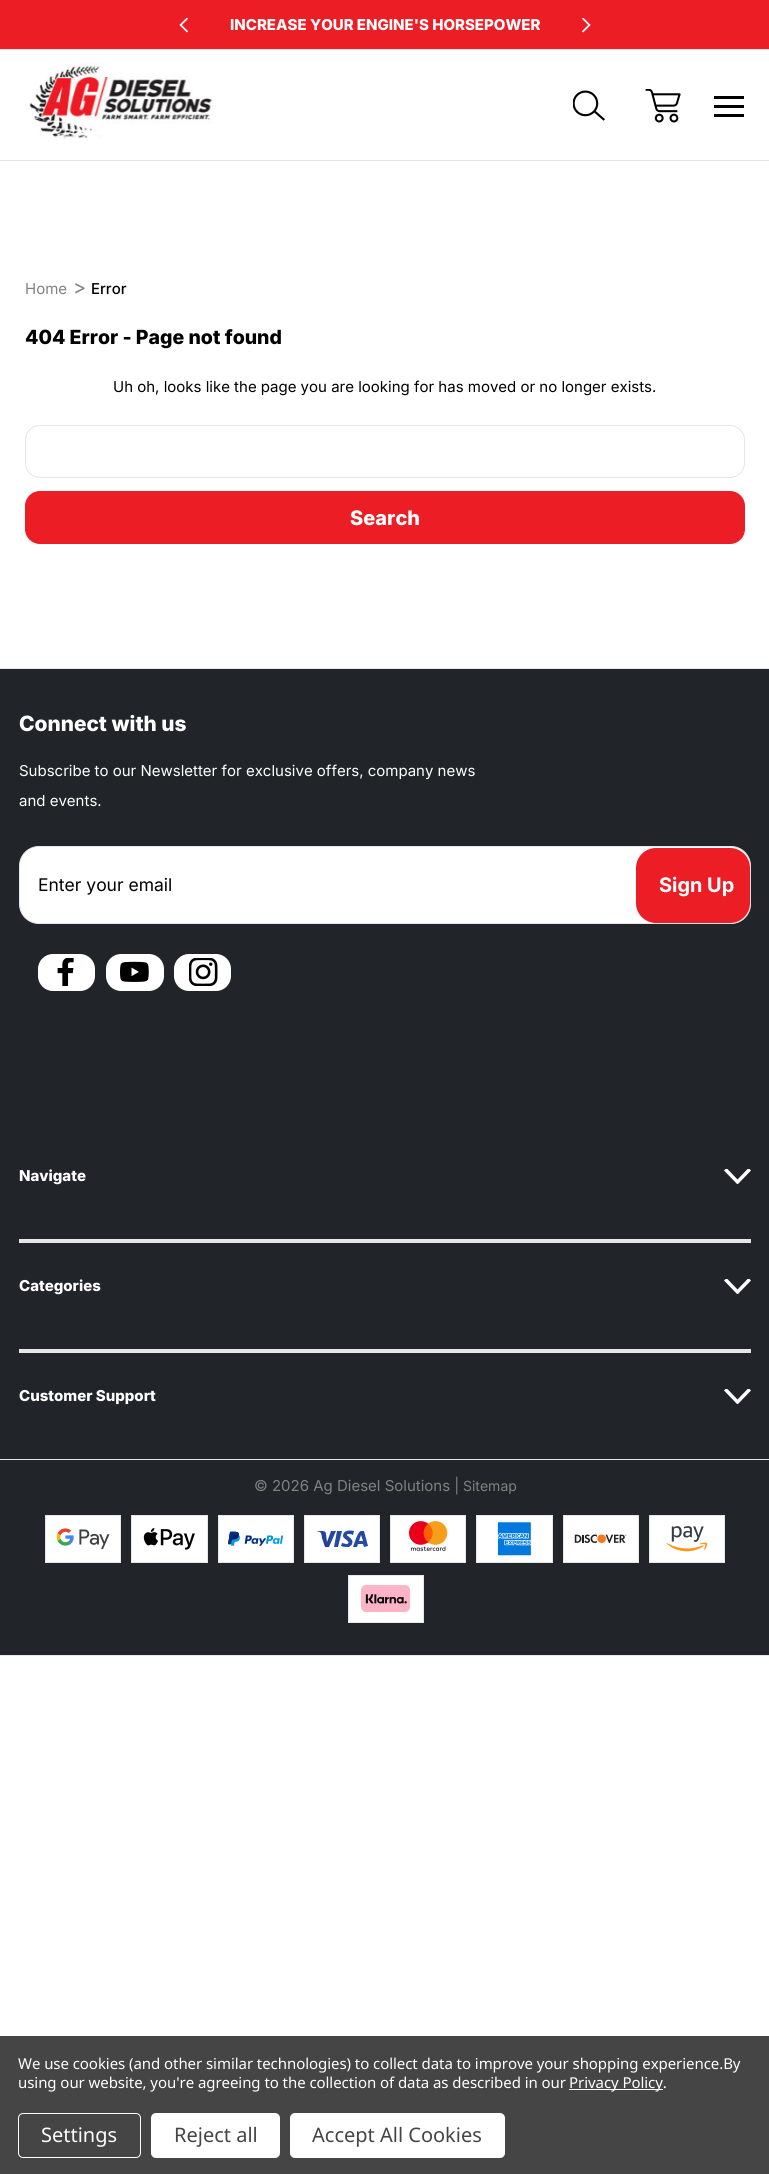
import math
import cairo

surface = cairo.ImageSurface(cairo.FORMAT_RGB24, 769, 2174)
cr = cairo.Context(surface)
options = cairo.FontOptions()
options.set_hint_metrics(cairo.HINT_METRICS_OFF)
options.set_hint_style(cairo.HINT_STYLE_NONE)
cr.set_font_options(options)
cr.set_miter_limit(4)


def rgb(code):
    cr.set_source_rgb(*(v / 255 for v in bytes.fromhex(code[-6:])))


def tracked(x, y, s, letter, word):
    cr.move_to(x, y)
    for ch in s:
        cr.show_text(ch)
        cr.rel_move_to(letter + word * (ch == ' '), 0)


def rrect(x, y, w, h, r):
    cr.new_sub_path()
    for i, (u, v) in enumerate([(x + w - r, y + h - r), (x + r, y + h - r), (x + r, y + r), (x + w - r, y + r)]):
        cr.arc(u, v, r, i * math.pi / 2, (i + 1) * math.pi / 2)
    cr.close_path()


def image(path, x, y, w, h):
    cr.save()
    cr.set_source_surface(cairo.ImageSurface.create_from_png(path), x, y)
    cr.rectangle(x, y, w, h)
    cr.fill()
    cr.restore()


rgb("#ffffff")
cr.paint()
for x, y, w, h, color in [
    (0, 160, 769, 1, "#e6e6e6"),
    (0, 0, 769, 49, "#ed1d25"),
    (0, 49, 769, 1, "#e6e6e6"),
]:
    rgb(color)
    cr.rectangle(x, y, w, h)
    cr.fill()
image("img/1.png", 179, 18, 9, 15)
image("img/2.png", 582, 18, 9, 15)
image("img/3.png", 25, 62, 189, 77)
image("img/4.png", 573, 90, 32, 31)
image("img/5.png", 645, 89, 36, 34)
for x, y, w, h, color in [
    (714, 105, 30, 3, "#000000"),
    (714, 96, 30, 3, "#000000"),
    (714, 114, 30, 3, "#000000"),
]:
    rgb(color)
    cr.rectangle(x, y, w, h)
    cr.fill()
rrect(25.5, 425.5, 719, 52, 14.5)
rgb("#e6e6e6")
cr.set_line_width(1)
cr.stroke()
rgb("#ed1d25")
rrect(25, 491, 720, 53, 15)
cr.fill()
rgb("#212529")
cr.rectangle(0, 669, 769, 986)
cr.fill()
rgb("#e6e6e6")
cr.rectangle(0, 668, 769, 1)
cr.fill()
rgb("#ffffff")
rrect(19.5, 846.5, 731, 77, 19.5)
cr.fill_preserve()
rgb("#e6e6e6")
cr.stroke()
rgb("#ed1d25")
rrect(636, 848, 114, 75, 20)
cr.fill()
rgb("#ffffff")
rrect(38, 954, 57, 37, 15)
cr.fill()
image("img/6.png", 57, 958, 17, 28)
rrect(106, 954, 58, 37, 15)
cr.fill()
image("img/7.png", 120, 961, 29, 21)
rrect(174, 954, 57, 37, 15)
cr.fill()
image("img/8.png", 189, 958, 29, 28)
cr.save()
cr.rectangle(724, 1169, 27, 15)
cr.clip()
cr.new_path()
cr.move_to(737.5, 1184.5)
cr.line_to(724, 1170.5)
cr.line_to(726.5, 1168)
cr.line_to(737.5, 1179.5)
cr.line_to(748.5, 1168)
cr.line_to(751, 1170.5)
cr.close_path()
cr.fill()
cr.restore()
rgb("#e6e6e6")
cr.rectangle(19, 1239, 732, 4)
cr.fill()
cr.save()
cr.rectangle(724, 1279, 27, 15)
cr.clip()
rgb("#ffffff")
cr.new_path()
cr.move_to(737.5, 1294.5)
cr.line_to(724, 1280.5)
cr.line_to(726.5, 1278)
cr.line_to(737.5, 1289.5)
cr.line_to(748.5, 1278)
cr.line_to(751, 1280.5)
cr.close_path()
cr.fill()
cr.restore()
cr.rectangle(19, 1349, 732, 4)
cr.fill()
cr.save()
cr.rectangle(724, 1389, 27, 15)
cr.clip()
rgb("#ffffff")
cr.new_path()
cr.move_to(737.5, 1404.5)
cr.line_to(724, 1390.5)
cr.line_to(726.5, 1388)
cr.line_to(737.5, 1399.5)
cr.line_to(748.5, 1388)
cr.line_to(751, 1390.5)
cr.close_path()
cr.fill()
cr.restore()
cr.rectangle(0, 1459, 769, 1)
cr.fill()
cr.rectangle(0, 1655, 769, 1)
cr.fill()
rgb("#ffffff")
cr.rectangle(45.5, 1515.5, 75, 47)
cr.fill_preserve()
rgb("#e6e6e6")
cr.stroke()
image("img/9.png", 56, 1528, 54, 22)
rgb("#ffffff")
cr.rectangle(131.5, 1515.5, 76, 47)
cr.fill_preserve()
rgb("#e6e6e6")
cr.stroke()
image("img/10.png", 143, 1528, 52, 22)
rgb("#ffffff")
cr.rectangle(218.5, 1515.5, 75, 47)
cr.fill_preserve()
rgb("#e6e6e6")
cr.stroke()
image("img/11.png", 228, 1531, 56, 15)
rgb("#ffffff")
cr.rectangle(304.5, 1515.5, 75, 47)
cr.fill_preserve()
rgb("#e6e6e6")
cr.stroke()
gradient = cairo.LinearGradient(303, 1570, 340, 1557)
gradient.add_color_stop_rgba(0, 0.133, 0.137, 0.341, 1)
gradient.add_color_stop_rgba(1, 0.145, 0.29, 0.647, 1)
cr.set_source(gradient)
cr.set_fill_rule(cairo.FILL_RULE_EVEN_ODD)
cr.new_path()
cr.move_to(361, 1531)
cr.line_to(364, 1531)
cr.line_to(368, 1546)
cr.line_to(364, 1547)
cr.line_to(363, 1544)
cr.line_to(358, 1544)
cr.line_to(357, 1547)
cr.line_to(353, 1547)
cr.curve_to(354, 1544, 358, 1531, 361, 1531)
cr.close_path()
cr.move_to(343, 1536)
cr.curve_to(343, 1530, 350, 1530, 354, 1531)
cr.line_to(353, 1535)
cr.curve_to(352, 1534, 350, 1534, 348, 1534)
cr.curve_to(343, 1535, 355, 1538, 352, 1544)
cr.curve_to(352, 1545, 350, 1546, 349, 1547)
cr.curve_to(346, 1547, 343, 1547, 341, 1546)
cr.line_to(342, 1543)
cr.curve_to(343, 1543, 345, 1544, 347, 1544)
cr.curve_to(352, 1542, 343, 1539, 343, 1536)
cr.close_path()
cr.move_to(331, 1531)
cr.line_to(336, 1531)
cr.line_to(329, 1547)
cr.line_to(325, 1547)
cr.line_to(322, 1538)
cr.curve_to(321, 1533, 322, 1532, 316, 1531)
cr.curve_to(328, 1531, 325, 1530, 327, 1542)
cr.close_path()
cr.move_to(337, 1531)
cr.line_to(342, 1531)
cr.line_to(338, 1547)
cr.line_to(334, 1547)
cr.close_path()
cr.move_to(361, 1535)
cr.line_to(359, 1541)
cr.line_to(363, 1541)
cr.close_path()
cr.fill()
rgb("#ffffff")
cr.rectangle(390.5, 1515.5, 75, 47)
cr.fill_preserve()
rgb("#e6e6e6")
cr.stroke()
image("img/12.png", 408, 1521, 40, 30)
rgb("#ffffff")
cr.rectangle(476.5, 1515.5, 76, 47)
cr.fill_preserve()
rgb("#e6e6e6")
cr.stroke()
image("img/13.png", 497, 1522, 34, 34)
rgb("#ffffff")
cr.rectangle(563.5, 1515.5, 75, 47)
cr.fill_preserve()
rgb("#e6e6e6")
cr.stroke()
image("img/14.png", 574, 1534, 53, 9)
rgb("#ffffff")
cr.rectangle(649.5, 1515.5, 75, 47)
cr.fill_preserve()
rgb("#e6e6e6")
cr.stroke()
image("img/15.png", 666, 1526, 42, 26)
rgb("#ffffff")
cr.rectangle(348.5, 1575.5, 75, 47)
cr.fill_preserve()
rgb("#e6e6e6")
cr.stroke()
image("img/16.png", 361, 1585, 49, 27)
rgb("#454545")
cr.rectangle(0, 2036, 769, 138)
cr.fill()
rgb("#ffffff")
cr.rectangle(569, 2089, 94, 1)
cr.fill()
rrect(18.5, 2113.5, 122, 44, 4.5)
cr.stroke()
rrect(151, 2113, 129, 45, 5)
cr.fill()
rrect(290, 2113, 215, 45, 5)
cr.fill()
cr.select_font_face("Inter ExtraBold")
cr.set_font_size(15)
cr.move_to(230, 30)
cr.show_text("INCREASE YOUR ENGINE'S HORSEPOWER")
cr.select_font_face("Inter")
rgb("#818181")
cr.move_to(25, 294)
cr.show_text("Home")
cr.set_font_size(20)
cr.move_to(73, 294)
cr.show_text(">")
cr.select_font_face("Inter Medium")
cr.set_font_size(15)
rgb("#000000")
cr.move_to(91, 294)
cr.show_text("Error")
cr.select_font_face("Inter ExtraBold")
cr.set_font_size(19.5)
cr.move_to(25, 344)
cr.show_text("404 Error - Page not found")
cr.select_font_face("Inter")
cr.set_font_size(15)
cr.move_to(113, 392)
cr.show_text("Uh oh, looks like the page you are looking for has moved or no longer exists.")
cr.select_font_face("Inter ExtraBold")
cr.set_font_size(20)
rgb("#ffffff")
cr.move_to(350, 525)
cr.show_text("Search")
cr.select_font_face("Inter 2 ExtraBold")
cr.set_font_size(21)
cr.move_to(19, 731)
cr.show_text("Connect with us")
cr.select_font_face("Inter")
cr.set_font_size(15)
cr.move_to(19, 776)
cr.show_text("Subscribe to our Newsletter for exclusive offers, company news")
cr.move_to(19, 806)
cr.show_text("and events.")
cr.set_font_size(17.5)
rgb("#000000")
cr.move_to(38, 891)
cr.show_text("Enter your email")
cr.select_font_face("Inter", cairo.FONT_SLANT_NORMAL, cairo.FONT_WEIGHT_BOLD)
cr.set_font_size(20)
rgb("#ffffff")
cr.move_to(659, 892)
cr.show_text("Sign Up")
cr.select_font_face("Inter ExtraBold")
cr.set_font_size(15)
for x, y, s in [
    (19, 1181, "Navigate"),
    (19, 1291, "Categories"),
    (19, 1401, "Customer Support"),
]:
    cr.move_to(x, y)
    cr.show_text(s)
cr.select_font_face("Inter")
rgb("#818181")
cr.move_to(254, 1491)
cr.show_text("© 2026 Ag Diesel Solutions |")
cr.set_font_size(14)
cr.move_to(463, 1491)
cr.show_text("Sitemap")
cr.select_font_face("Noto Sans")
cr.set_font_size(15)
rgb("#ffffff")
for x, y, s in [
    (18, 2069, "We use cookies (and other similar technologies) to collect data to improve your shopping experience.By"),
    (18, 2088, "using our website, you're agreeing to the collection of data as described in our"),
    (569, 2088, "Privacy Policy."),
]:
    tracked(x, y, s, -0.06, 0)
cr.set_font_size(20)
cr.move_to(41, 2142)
cr.show_text("Settings")
rgb("#454545")
cr.move_to(174, 2142)
cr.show_text("Reject all")
cr.move_to(312, 2142)
cr.show_text("Accept All Cookies")
surface.write_to_png("page.png")
